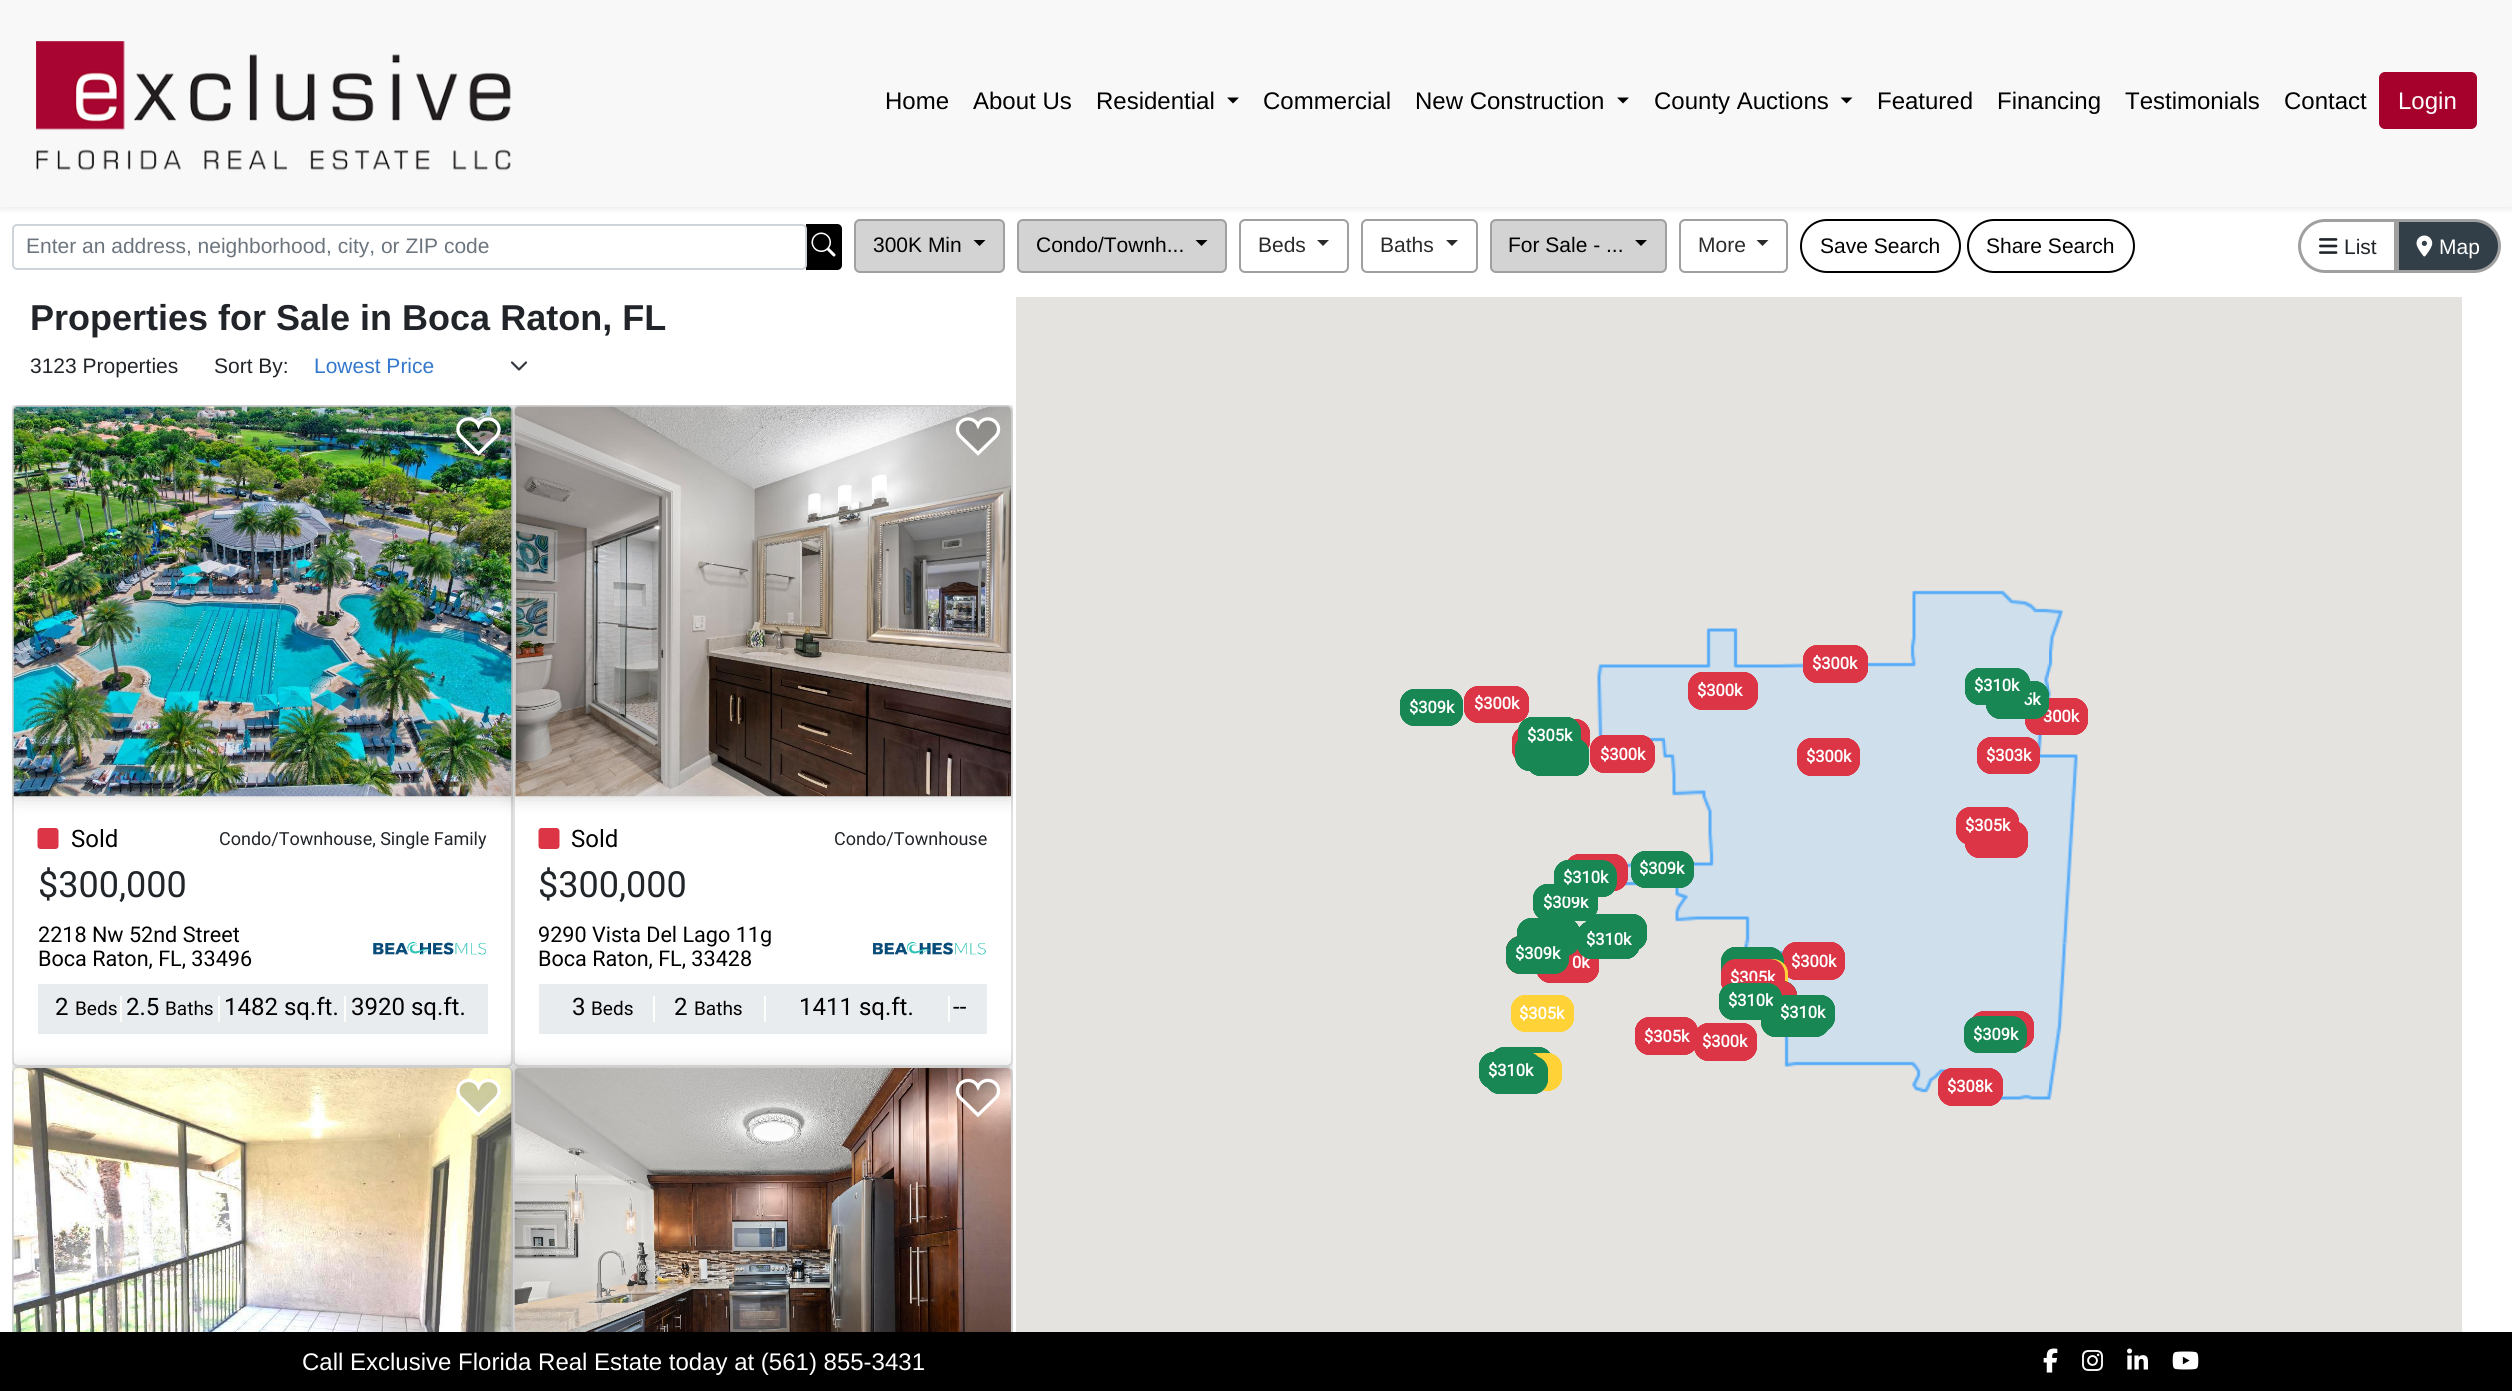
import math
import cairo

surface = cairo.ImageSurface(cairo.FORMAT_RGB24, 2512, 1391)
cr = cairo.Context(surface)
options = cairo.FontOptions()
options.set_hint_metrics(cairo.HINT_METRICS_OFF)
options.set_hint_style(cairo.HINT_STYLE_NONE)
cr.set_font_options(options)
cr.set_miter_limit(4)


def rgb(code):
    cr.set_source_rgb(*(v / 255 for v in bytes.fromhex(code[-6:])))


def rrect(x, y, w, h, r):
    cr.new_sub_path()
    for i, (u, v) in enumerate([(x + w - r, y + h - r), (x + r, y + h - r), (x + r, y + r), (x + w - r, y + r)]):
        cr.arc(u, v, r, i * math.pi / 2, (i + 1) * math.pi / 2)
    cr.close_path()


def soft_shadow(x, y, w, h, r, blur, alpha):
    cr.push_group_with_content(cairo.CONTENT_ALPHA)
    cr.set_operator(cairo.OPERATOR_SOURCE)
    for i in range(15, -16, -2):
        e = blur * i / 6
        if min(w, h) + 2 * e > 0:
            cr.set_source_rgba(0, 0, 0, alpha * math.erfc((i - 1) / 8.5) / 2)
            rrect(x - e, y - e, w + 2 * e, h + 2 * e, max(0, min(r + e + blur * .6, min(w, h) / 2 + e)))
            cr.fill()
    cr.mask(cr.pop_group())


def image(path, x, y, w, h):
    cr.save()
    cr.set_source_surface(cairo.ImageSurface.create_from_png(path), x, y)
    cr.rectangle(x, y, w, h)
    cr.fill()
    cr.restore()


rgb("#ffffff")
cr.paint()
rgb("#d3d3d3")
rrect(855, 220, 149, 52, 5)
cr.fill_preserve()
rgb("#a0a0a0")
cr.stroke()
rgb("#d3d3d3")
rrect(1018, 220, 208, 52, 5)
cr.fill_preserve()
rgb("#a0a0a0")
cr.stroke()
rrect(1240, 220, 108, 52, 5)
cr.stroke()
rrect(1362, 220, 115, 52, 5)
cr.stroke()
rgb("#d3d3d3")
rrect(1491, 220, 175, 52, 5)
cr.fill_preserve()
rgb("#a0a0a0")
cr.stroke()
rrect(1680, 220, 107, 52, 5)
cr.stroke()
rrect(1801, 220, 159, 52, 26)
rgb("#000000")
cr.stroke()
rrect(1968, 220, 166, 52, 26)
cr.stroke()
cr.new_path()
cr.move_to(2325, 220.5)
cr.line_to(2395.5, 220.5)
cr.line_to(2395.5, 271.5)
cr.line_to(2325, 271.5)
cr.curve_to(2311, 271.5, 2299.5, 260, 2299.5, 246)
cr.curve_to(2299.5, 232, 2311, 220.5, 2325, 220.5)
cr.close_path()
rgb("#a0a0a0")
cr.set_line_width(3)
cr.stroke()
rgb("#333f48")
cr.new_path()
cr.move_to(2397.5, 220.5)
cr.line_to(2474, 220.5)
cr.curve_to(2488, 220.5, 2499.5, 232, 2499.5, 246)
cr.curve_to(2499.5, 260, 2488, 271.5, 2474, 271.5)
cr.line_to(2397.5, 271.5)
cr.close_path()
cr.fill_preserve()
rgb("#a0a0a0")
cr.stroke()
rgb("#000000")
soft_shadow(0, 3, 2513, 207, 0, 3, 0.07)
rgb("#f8f8f8")
cr.rectangle(0, 0, 2512, 207)
cr.fill()
image("img/1.png", 36, 41, 475, 130)
rgb("#000000")
cr.new_path()
cr.move_to(1227, 97.5)
cr.line_to(1239, 97.5)
cr.line_to(1233, 103.5)
cr.close_path()
cr.fill()
cr.new_path()
cr.move_to(1617, 97.5)
cr.line_to(1629, 97.5)
cr.line_to(1623, 103.5)
cr.close_path()
cr.fill()
cr.new_path()
cr.move_to(1840.5, 97.5)
cr.line_to(1852.5, 97.5)
cr.line_to(1846.5, 103.5)
cr.close_path()
cr.fill()
rgb("#a5012c")
rrect(2379, 72, 98, 57, 6)
cr.fill()
rgb("#000000")
cr.new_path()
cr.move_to(806, 224)
cr.line_to(837, 224)
cr.curve_to(840, 224, 842, 226, 842, 229)
cr.line_to(842, 265)
cr.curve_to(842, 268, 840, 270, 837, 270)
cr.line_to(806, 270)
cr.close_path()
cr.fill()
rrect(13, 225, 793, 44, 4)
rgb("#ced4da")
cr.set_line_width(2)
cr.stroke()
image("img/2.png", 811, 232, 25, 25)
rgb("#000000")
cr.new_path()
cr.move_to(973.5, 240)
cr.line_to(985.5, 240)
cr.line_to(979.5, 246)
cr.close_path()
cr.fill()
cr.new_path()
cr.move_to(1195.5, 240)
cr.line_to(1207.5, 240)
cr.line_to(1201.5, 246)
cr.close_path()
cr.fill()
rgb("#2b2b2b")
cr.new_path()
cr.move_to(1317, 240)
cr.line_to(1329, 240)
cr.line_to(1323, 246)
cr.close_path()
cr.fill()
cr.new_path()
cr.move_to(1446, 240)
cr.line_to(1458, 240)
cr.line_to(1452, 246)
cr.close_path()
cr.fill()
rgb("#000000")
cr.new_path()
cr.move_to(1635, 240)
cr.line_to(1647, 240)
cr.line_to(1641, 246)
cr.close_path()
cr.fill()
rgb("#2b2b2b")
cr.new_path()
cr.move_to(1756.5, 240)
cr.line_to(1768.5, 240)
cr.line_to(1762.5, 246)
cr.close_path()
cr.fill()
image("img/3.png", 2319, 238, 19, 16)
image("img/4.png", 2416, 235, 17, 22)
cr.new_path()
cr.move_to(512, 362.5)
cr.line_to(519, 369.5)
cr.line_to(526, 362.5)
rgb("#343a40")
cr.set_line_width(2.2)
cr.set_line_cap(cairo.LINE_CAP_ROUND)
cr.set_line_join(cairo.LINE_JOIN_ROUND)
cr.stroke()
cr.save()
cr.rectangle(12, 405, 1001, 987)
cr.clip()
rgb("#000000")
soft_shadow(12, 408, 501, 662, 6, 3, 0.07)
cr.restore()
rgb("#ffffff")
rrect(13, 406, 499, 660, 5)
cr.fill_preserve()
rgb("#dfdfdf")
cr.set_line_width(2)
cr.set_line_cap(cairo.LINE_CAP_BUTT)
cr.set_line_join(cairo.LINE_JOIN_MITER)
cr.stroke()
cr.save()
cr.rectangle(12, 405, 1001, 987)
cr.clip()
rgb("#000000")
soft_shadow(14, 407, 498, 390, 0, 9, 0.18)
cr.restore()
image("img/5.png", 13, 406, 499, 391)
image("img/6.png", 456, 417, 45, 39)
image("img/7.png", 37, 828, 22, 21)
image("img/8.png", 373, 941, 114, 14)
for x, y, w, h, color in [
    (38, 984, 450, 50, "#e9ecef"),
    (120, 996, 2, 26, "#fefefd"),
    (218, 996, 2, 26, "#fefefd"),
    (344, 996, 2, 26, "#fefefd"),
]:
    rgb(color)
    cr.rectangle(x, y, w, h)
    cr.fill()
cr.save()
cr.rectangle(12, 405, 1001, 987)
cr.clip()
rgb("#000000")
soft_shadow(513, 408, 500, 662, 6, 3, 0.07)
cr.restore()
rgb("#ffffff")
rrect(513, 405, 500, 662, 6)
cr.fill()
rrect(514, 406, 498, 660, 5)
cr.set_source_rgba(0, 0, 0, 0.12)
cr.stroke()
cr.save()
cr.rectangle(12, 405, 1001, 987)
cr.clip()
rgb("#000000")
soft_shadow(515, 407, 496, 390, 0, 9, 0.18)
cr.restore()
image("img/9.png", 514, 406, 497, 391)
image("img/10.png", 955, 417, 46, 39)
image("img/7.png", 538, 828, 22, 21)
image("img/11.png", 873, 941, 113, 14)
for x, y, w, h, color in [
    (539, 984, 448, 50, "#e9ecef"),
    (653, 996, 2, 26, "#fefefd"),
    (764, 996, 2, 26, "#fefefd"),
    (948, 996, 2, 26, "#fefefd"),
]:
    rgb(color)
    cr.rectangle(x, y, w, h)
    cr.fill()
rgb("#ffffff")
cr.new_path()
cr.move_to(18, 1067)
cr.line_to(507, 1067)
cr.curve_to(510.5, 1067, 513, 1069.5, 513, 1073)
cr.line_to(513, 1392)
cr.line_to(12, 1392)
cr.line_to(12, 1073)
cr.curve_to(12, 1069.5, 14.5, 1067, 18, 1067)
cr.close_path()
cr.fill()
rrect(13, 1068, 499, 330, 5)
cr.set_source_rgba(0, 0, 0, 0.12)
cr.stroke()
cr.save()
cr.rectangle(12, 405, 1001, 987)
cr.clip()
rgb("#000000")
soft_shadow(14, 1068, 498, 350, 0, 9, 0.18)
cr.restore()
image("img/12.png", 13, 1068, 499, 264)
image("img/13.png", 456, 1078, 45, 40)
cr.save()
cr.rectangle(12, 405, 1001, 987)
cr.clip()
rgb("#000000")
soft_shadow(513, 1070, 500, 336, 6, 3, 0.07)
cr.restore()
rgb("#ffffff")
cr.new_path()
cr.move_to(519, 1067)
cr.line_to(1007, 1067)
cr.curve_to(1010.5, 1067, 1013, 1069.5, 1013, 1073)
cr.line_to(1013, 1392)
cr.line_to(513, 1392)
cr.line_to(513, 1073)
cr.curve_to(513, 1069.5, 515.5, 1067, 519, 1067)
cr.close_path()
cr.fill()
rrect(514, 1068, 498, 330, 5)
cr.set_source_rgba(0, 0, 0, 0.12)
cr.stroke()
cr.save()
cr.rectangle(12, 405, 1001, 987)
cr.clip()
rgb("#000000")
soft_shadow(515, 1068, 496, 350, 0, 9, 0.18)
cr.restore()
image("img/14.png", 514, 1068, 497, 264)
image("img/15.png", 955, 1078, 46, 40)
rgb("#e5e3df")
cr.rectangle(1016, 297, 1446, 1035)
cr.fill()
image("img/16.png", 1597, 664, 68, 222)
image("img/19.png", 1744, 943, 305, 157)
image("img/17.png", 1665, 590, 384, 354)
image("img/18.png", 2049, 608, 29, 336)
image("img/20.png", 2049, 943, 19, 157)
rrect(1804, 646, 63, 36, 14)
rgb("#dc3545")
cr.stroke()
rrect(1804, 646, 63, 36, 14)
cr.stroke()
rrect(1804, 646, 63, 36, 14)
cr.stroke()
rrect(1804, 646, 63, 36, 14)
cr.fill_preserve()
cr.stroke()
rrect(2026, 699, 61, 35, 14)
cr.stroke()
rrect(2026, 699, 61, 35, 14)
cr.stroke()
rrect(1987, 682, 61, 36, 14)
rgb("#198754")
cr.stroke()
rrect(1968, 669, 61, 35, 14)
cr.stroke()
rrect(1966, 669, 61, 35, 14)
cr.stroke()
rrect(1987, 682, 61, 36, 14)
cr.stroke()
rrect(1968, 669, 61, 35, 14)
cr.stroke()
rrect(1966, 669, 61, 35, 14)
cr.stroke()
rrect(1696, 673, 61, 36, 14)
rgb("#dc3545")
cr.stroke()
rrect(1689, 673, 62, 36, 14)
cr.stroke()
rrect(1696, 673, 61, 36, 14)
cr.stroke()
rrect(1689, 673, 62, 36, 14)
cr.stroke()
rrect(1696, 673, 61, 36, 14)
cr.stroke()
rrect(1689, 673, 62, 36, 14)
cr.stroke()
rrect(1696, 673, 61, 36, 14)
cr.fill_preserve()
cr.stroke()
rrect(1527, 720, 62, 35, 14)
cr.stroke()
rrect(1465, 687, 63, 35, 14)
cr.stroke()
rrect(1689, 673, 62, 36, 14)
cr.fill_preserve()
cr.stroke()
rrect(1513, 727, 63, 36, 14)
cr.stroke()
rrect(1527, 739, 61, 36, 14)
rgb("#198754")
cr.stroke()
rrect(1527, 720, 62, 35, 14)
rgb("#dc3545")
cr.stroke()
rrect(1465, 687, 63, 35, 14)
cr.stroke()
rrect(1401, 690, 61, 35, 14)
rgb("#198754")
cr.stroke()
rrect(1516, 735, 61, 35, 14)
cr.stroke()
rrect(1519, 718, 61, 36, 14)
cr.stroke()
rrect(1513, 727, 63, 36, 14)
rgb("#dc3545")
cr.stroke()
rrect(1527, 739, 61, 36, 14)
rgb("#198754")
cr.stroke()
rrect(1516, 735, 61, 35, 14)
cr.stroke()
rrect(1519, 718, 61, 36, 14)
cr.stroke()
rrect(1527, 720, 62, 35, 14)
rgb("#dc3545")
cr.stroke()
rrect(1465, 687, 63, 35, 14)
cr.stroke()
rrect(1401, 690, 61, 35, 14)
rgb("#198754")
cr.stroke()
rrect(1401, 690, 61, 35, 14)
cr.stroke()
rgb("#dc3545")
rrect(1527, 720, 62, 35, 14)
cr.fill_preserve()
cr.stroke()
rrect(1465, 687, 63, 35, 14)
cr.fill_preserve()
cr.stroke()
rgb("#198754")
rrect(1401, 690, 61, 35, 14)
cr.fill_preserve()
cr.stroke()
rrect(2026, 699, 61, 35, 14)
rgb("#dc3545")
cr.stroke()
rrect(2026, 699, 61, 35, 14)
cr.fill_preserve()
cr.stroke()
rrect(1513, 727, 63, 36, 14)
cr.stroke()
rrect(1527, 739, 61, 36, 14)
rgb("#198754")
cr.stroke()
rgb("#dc3545")
rrect(1513, 727, 63, 36, 14)
cr.fill_preserve()
cr.stroke()
rgb("#198754")
rrect(1527, 739, 61, 36, 14)
cr.fill_preserve()
cr.stroke()
rrect(1516, 735, 61, 35, 14)
cr.stroke()
rrect(1519, 718, 61, 36, 14)
cr.stroke()
rrect(1516, 735, 61, 35, 14)
cr.fill_preserve()
cr.stroke()
rrect(1519, 718, 61, 36, 14)
cr.fill_preserve()
cr.stroke()
rrect(1591, 736, 63, 36, 14)
rgb("#dc3545")
cr.stroke()
rrect(1591, 736, 63, 36, 14)
cr.stroke()
rrect(1591, 736, 63, 36, 14)
cr.stroke()
rrect(1978, 738, 61, 35, 14)
cr.stroke()
rrect(1978, 738, 61, 35, 14)
cr.stroke()
rrect(1978, 738, 61, 35, 14)
cr.stroke()
rrect(1798, 739, 61, 36, 14)
cr.stroke()
rrect(1798, 739, 61, 36, 14)
cr.stroke()
rrect(1591, 736, 63, 36, 14)
cr.fill_preserve()
cr.stroke()
rrect(1798, 739, 61, 36, 14)
cr.stroke()
rrect(1978, 738, 61, 35, 14)
cr.fill_preserve()
cr.stroke()
rrect(1798, 739, 61, 36, 14)
cr.fill_preserve()
cr.stroke()
rrect(1966, 822, 61, 35, 14)
cr.stroke()
rrect(1957, 808, 61, 36, 14)
cr.stroke()
rrect(1966, 822, 61, 35, 14)
cr.stroke()
rrect(1957, 808, 61, 36, 14)
cr.stroke()
rrect(1966, 822, 61, 35, 14)
cr.stroke()
rrect(1966, 822, 61, 35, 14)
cr.fill_preserve()
cr.stroke()
rrect(1957, 808, 61, 36, 14)
cr.stroke()
rrect(1957, 808, 61, 36, 14)
cr.fill_preserve()
cr.stroke()
rrect(1632, 852, 61, 35, 14)
rgb("#198754")
cr.stroke()
rrect(1632, 852, 61, 35, 14)
cr.stroke()
rrect(1507, 937, 61, 36, 14)
rgb("#dc3545")
cr.stroke()
rrect(1537, 946, 61, 36, 14)
cr.stroke()
rrect(1585, 915, 61, 35, 14)
rgb("#198754")
cr.stroke()
rrect(1518, 919, 61, 36, 14)
cr.stroke()
rrect(1578, 922, 61, 36, 14)
cr.stroke()
rrect(1507, 937, 61, 36, 14)
rgb("#dc3545")
cr.stroke()
rrect(1537, 946, 61, 36, 14)
cr.stroke()
rrect(1585, 915, 61, 35, 14)
rgb("#198754")
cr.stroke()
rrect(1518, 919, 61, 36, 14)
cr.stroke()
rrect(1534, 885, 63, 35, 14)
cr.stroke()
rrect(1566, 855, 61, 35, 14)
rgb("#dc3545")
cr.stroke()
rrect(1632, 852, 61, 35, 14)
rgb("#198754")
cr.stroke()
rrect(1555, 861, 61, 35, 14)
cr.stroke()
rrect(1534, 885, 63, 35, 14)
cr.stroke()
rrect(1566, 855, 61, 35, 14)
rgb("#dc3545")
cr.stroke()
rrect(1555, 861, 61, 35, 14)
rgb("#198754")
cr.stroke()
rrect(1632, 852, 61, 35, 14)
cr.fill_preserve()
cr.stroke()
rrect(1578, 922, 61, 36, 14)
cr.stroke()
rrect(1578, 922, 61, 36, 14)
cr.stroke()
rrect(1578, 922, 61, 36, 14)
cr.stroke()
rrect(1507, 937, 61, 36, 14)
cr.stroke()
rrect(1507, 937, 61, 36, 14)
cr.stroke()
rrect(1507, 937, 61, 36, 14)
rgb("#dc3545")
cr.stroke()
rrect(1507, 937, 61, 36, 14)
cr.stroke()
rrect(1537, 946, 61, 36, 14)
cr.stroke()
rrect(1585, 915, 61, 35, 14)
rgb("#198754")
cr.stroke()
rrect(1518, 919, 61, 36, 14)
cr.stroke()
rrect(1578, 922, 61, 36, 14)
cr.stroke()
rgb("#dc3545")
rrect(1537, 946, 61, 36, 14)
cr.fill_preserve()
cr.stroke()
rgb("#198754")
rrect(1585, 915, 61, 35, 14)
cr.fill_preserve()
cr.stroke()
rrect(1783, 943, 61, 36, 14)
rgb("#dc3545")
cr.stroke()
rrect(1783, 943, 61, 36, 14)
cr.stroke()
rrect(1722, 948, 61, 35, 14)
rgb("#198754")
cr.stroke()
rrect(1726, 960, 61, 35, 14)
rgb("#ffd237")
cr.stroke()
rrect(1722, 960, 62, 35, 14)
rgb("#dc3545")
cr.stroke()
rrect(1768, 1000, 61, 36, 14)
rgb("#198754")
cr.stroke()
rrect(1734, 982, 62, 36, 14)
cr.stroke()
rrect(1734, 982, 62, 36, 14)
rgb("#dc3545")
cr.stroke()
rrect(1722, 948, 61, 35, 14)
rgb("#198754")
cr.stroke()
rrect(1726, 960, 61, 35, 14)
rgb("#ffd237")
cr.stroke()
rrect(1722, 960, 62, 35, 14)
rgb("#dc3545")
cr.stroke()
rrect(1783, 943, 61, 36, 14)
cr.stroke()
rrect(1783, 943, 61, 36, 14)
cr.fill_preserve()
cr.stroke()
rrect(1768, 1000, 61, 36, 14)
rgb("#198754")
cr.stroke()
rrect(1762, 1000, 61, 36, 14)
cr.stroke()
rrect(1720, 984, 61, 35, 14)
cr.stroke()
rrect(1773, 996, 61, 35, 14)
cr.stroke()
rrect(1734, 982, 62, 36, 14)
cr.stroke()
rrect(1734, 982, 62, 36, 14)
rgb("#dc3545")
cr.stroke()
rrect(1762, 1000, 61, 36, 14)
rgb("#198754")
cr.stroke()
rrect(1720, 984, 61, 35, 14)
cr.stroke()
rrect(1722, 948, 61, 35, 14)
cr.stroke()
rrect(1773, 996, 61, 35, 14)
cr.stroke()
rrect(1726, 960, 61, 35, 14)
rgb("#ffd237")
cr.stroke()
rrect(1722, 960, 62, 35, 14)
rgb("#dc3545")
cr.stroke()
rgb("#198754")
rrect(1722, 948, 61, 35, 14)
cr.fill_preserve()
cr.stroke()
rgb("#ffd237")
rrect(1726, 960, 61, 35, 14)
cr.fill_preserve()
cr.stroke()
rgb("#dc3545")
rrect(1722, 960, 62, 35, 14)
cr.fill_preserve()
cr.stroke()
rrect(1512, 996, 61, 35, 14)
rgb("#ffd237")
cr.stroke()
rrect(1512, 996, 61, 35, 14)
cr.stroke()
rrect(1512, 996, 61, 35, 14)
cr.stroke()
rrect(1768, 1000, 61, 36, 14)
rgb("#198754")
cr.stroke()
rrect(1768, 1000, 61, 36, 14)
cr.fill_preserve()
cr.stroke()
rgb("#ffd237")
rrect(1512, 996, 61, 35, 14)
cr.fill_preserve()
cr.stroke()
rrect(1971, 1012, 62, 36, 14)
rgb("#dc3545")
cr.stroke()
rrect(1965, 1017, 61, 35, 14)
rgb("#198754")
cr.stroke()
rrect(1971, 1012, 62, 36, 14)
rgb("#dc3545")
cr.stroke()
rrect(1965, 1017, 61, 35, 14)
rgb("#198754")
cr.stroke()
rrect(1971, 1012, 62, 36, 14)
rgb("#dc3545")
cr.stroke()
rrect(1965, 1017, 61, 35, 14)
rgb("#198754")
cr.stroke()
rgb("#dc3545")
rrect(1971, 1012, 62, 36, 14)
cr.fill_preserve()
cr.stroke()
rrect(1695, 1024, 61, 36, 14)
cr.stroke()
rrect(1695, 1024, 61, 36, 14)
cr.stroke()
rrect(1636, 1018, 61, 36, 14)
cr.stroke()
rrect(1636, 1018, 61, 36, 14)
cr.stroke()
rrect(1695, 1024, 61, 36, 14)
cr.stroke()
rrect(1695, 1024, 61, 36, 14)
cr.fill_preserve()
cr.stroke()
rrect(1636, 1018, 61, 36, 14)
cr.stroke()
rrect(1636, 1018, 61, 36, 14)
cr.fill_preserve()
cr.stroke()
rgb("#198754")
rrect(1965, 1017, 61, 35, 14)
cr.fill_preserve()
cr.stroke()
rrect(1491, 1048, 61, 36, 14)
cr.stroke()
rrect(1500, 1054, 61, 36, 14)
rgb("#ffd237")
cr.stroke()
rrect(1491, 1048, 61, 36, 14)
rgb("#198754")
cr.stroke()
rrect(1500, 1054, 61, 36, 14)
rgb("#ffd237")
cr.stroke()
rrect(1486, 1057, 61, 36, 14)
rgb("#198754")
cr.stroke()
rrect(1480, 1053, 61, 35, 14)
cr.stroke()
rrect(1486, 1057, 61, 36, 14)
cr.stroke()
rrect(1480, 1053, 61, 35, 14)
cr.stroke()
rrect(1491, 1048, 61, 36, 14)
cr.stroke()
rrect(1491, 1048, 61, 36, 14)
cr.fill_preserve()
cr.stroke()
rrect(1500, 1054, 61, 36, 14)
rgb("#ffd237")
cr.stroke()
rrect(1500, 1054, 61, 36, 14)
cr.fill_preserve()
cr.stroke()
rrect(1486, 1057, 61, 36, 14)
rgb("#198754")
cr.stroke()
rrect(1486, 1057, 61, 36, 14)
cr.fill_preserve()
cr.stroke()
rrect(1480, 1053, 61, 35, 14)
cr.stroke()
rrect(1480, 1053, 61, 35, 14)
cr.fill_preserve()
cr.stroke()
rrect(1939, 1069, 63, 36, 14)
rgb("#dc3545")
cr.stroke()
rrect(1939, 1069, 63, 36, 14)
cr.stroke()
rrect(1939, 1069, 63, 36, 14)
cr.stroke()
rrect(1939, 1069, 63, 36, 14)
cr.fill_preserve()
cr.stroke()
rgb("#000000")
cr.rectangle(0, 1332, 2512, 59)
cr.fill()
image("img/21.png", 2043, 1348, 15, 25)
image("img/22.png", 2082, 1350, 21, 21)
image("img/23.png", 2127, 1348, 21, 22)
image("img/24.png", 2172, 1351, 27, 19)
cr.select_font_face("Liberation Sans")
cr.set_font_size(24)
for x, y, s in [
    (885, 109, "Home"),
    (973, 109, "About Us"),
    (1096, 109, "Residential"),
    (1263, 109, "Commercial"),
    (1415, 109, "New Construction"),
    (1654, 109, "County Auctions"),
    (1877, 109, "Featured"),
    (1997, 109, "Financing"),
    (2125, 109, "Testimonials"),
    (2284, 109, "Contact"),
]:
    cr.move_to(x, y)
    cr.show_text(s)
rgb("#ffffff")
cr.move_to(2398, 109)
cr.show_text("Login")
cr.set_font_size(21)
rgb("#6c757d")
cr.move_to(26, 253)
cr.show_text("Enter an address, neighborhood, city, or ZIP code")
rgb("#000000")
cr.move_to(873, 252)
cr.show_text("300K Min")
cr.move_to(1036, 252)
cr.show_text("Condo/Townh...")
rgb("#2b2b2b")
cr.move_to(1258, 252)
cr.show_text("Beds")
cr.move_to(1380, 252)
cr.show_text("Baths")
rgb("#000000")
cr.move_to(1508, 252)
cr.show_text("For Sale - ...")
rgb("#2b2b2b")
cr.move_to(1698, 252)
cr.show_text("More")
rgb("#000000")
cr.move_to(1820, 253)
cr.show_text("Save Search")
cr.move_to(1986, 253)
cr.show_text("Share Search")
rgb("#212529")
cr.move_to(2344, 254)
cr.show_text("List")
rgb("#ffffff")
cr.move_to(2439, 254)
cr.show_text("Map")
cr.select_font_face("Liberation Sans", cairo.FONT_SLANT_NORMAL, cairo.FONT_WEIGHT_BOLD)
cr.set_font_size(36)
rgb("#212529")
cr.move_to(30, 330)
cr.show_text("Properties for Sale in Boca Raton, FL")
cr.select_font_face("Liberation Sans")
cr.set_font_size(21)
cr.move_to(30, 373)
cr.show_text("3123 Properties")
cr.move_to(214, 373)
cr.show_text("Sort By:")
rgb("#3377cc")
cr.move_to(314, 373)
cr.show_text("Lowest Price")
cr.select_font_face("Roboto")
cr.set_font_size(24)
rgb("#000000")
cr.move_to(71, 847)
cr.show_text("Sold")
cr.set_font_size(18)
rgb("#212529")
cr.move_to(219, 845)
cr.show_text("Condo/Townhouse, Single Family")
cr.set_font_size(36)
cr.move_to(38, 897)
cr.show_text("$300,000")
cr.set_font_size(21.6)
rgb("#000000")
cr.move_to(38, 942)
cr.show_text("2218 Nw 52nd Street")
cr.move_to(38, 966)
cr.show_text("Boca Raton, FL, 33496")
cr.set_font_size(24)
cr.move_to(55, 1015)
cr.show_text("2")
cr.set_font_size(19)
cr.move_to(75, 1015)
cr.show_text("Beds")
cr.set_font_size(24)
cr.move_to(126, 1015)
cr.show_text("2.5")
cr.set_font_size(19)
cr.move_to(165, 1015)
cr.show_text("Baths")
cr.set_font_size(24)
for x, y, s in [
    (224, 1015, "1482 sq.ft."),
    (351, 1015, "3920 sq.ft."),
    (571, 847, "Sold"),
]:
    cr.move_to(x, y)
    cr.show_text(s)
cr.set_font_size(18)
rgb("#212529")
cr.move_to(834, 845)
cr.show_text("Condo/Townhouse")
cr.set_font_size(36)
cr.move_to(538, 897)
cr.show_text("$300,000")
cr.set_font_size(21.6)
rgb("#000000")
cr.move_to(538, 942)
cr.show_text("9290 Vista Del Lago 11g")
cr.move_to(538, 966)
cr.show_text("Boca Raton, FL, 33428")
cr.set_font_size(24)
cr.move_to(572, 1015)
cr.show_text("3")
cr.set_font_size(19)
cr.move_to(591, 1015)
cr.show_text("Beds")
cr.set_font_size(24)
cr.move_to(674, 1015)
cr.show_text("2")
cr.set_font_size(19)
cr.move_to(694, 1015)
cr.show_text("Baths")
cr.set_font_size(24)
cr.move_to(799, 1015)
cr.show_text("1411 sq.ft.")
cr.move_to(953, 1015)
cr.show_text("--")
cr.select_font_face("Roboto", cairo.FONT_SLANT_NORMAL, cairo.FONT_WEIGHT_BOLD)
cr.set_font_size(16.5)
rgb("#ffffff")
for x, y, s in [
    (1812, 669, "$300k"),
    (1697, 696, "$300k"),
    (1474, 709, "$300k"),
    (1409, 713, "$309k"),
    (2043, 722, "300k"),
]:
    cr.move_to(x, y)
    cr.show_text(s)
rrect(1987, 682, 61, 36, 14)
rgb("#198754")
cr.stroke()
rrect(1987, 682, 61, 36, 14)
cr.fill_preserve()
cr.stroke()
rgb("#ffffff")
cr.move_to(2023, 705)
cr.show_text("5k")
rrect(1968, 669, 61, 35, 14)
rgb("#198754")
cr.stroke()
rrect(1966, 669, 61, 35, 14)
cr.stroke()
rrect(1968, 669, 61, 35, 14)
cr.stroke()
rrect(1966, 669, 61, 35, 14)
cr.fill_preserve()
cr.stroke()
rgb("#ffffff")
for x, y, s in [
    (1974, 691, "$310k"),
    (1527, 741, "$305k"),
    (1600, 760, "$300k"),
    (1986, 761, "$303k"),
    (1806, 762, "$300k"),
    (1965, 831, "$305k"),
    (1639, 874, "$309k"),
    (1572, 968, "0k"),
]:
    cr.move_to(x, y)
    cr.show_text(s)
rgb("#198754")
rrect(1518, 919, 61, 36, 14)
cr.fill_preserve()
cr.stroke()
rrect(1578, 922, 61, 36, 14)
cr.stroke()
rrect(1578, 922, 61, 36, 14)
cr.stroke()
rrect(1578, 922, 61, 36, 14)
cr.fill_preserve()
cr.stroke()
rgb("#ffffff")
cr.move_to(1586, 945)
cr.show_text("$310k")
rrect(1534, 885, 63, 35, 14)
rgb("#198754")
cr.stroke()
rrect(1534, 885, 63, 35, 14)
cr.fill_preserve()
cr.stroke()
rrect(1566, 855, 61, 35, 14)
rgb("#dc3545")
cr.stroke()
rgb("#ffffff")
cr.move_to(1543, 908)
cr.show_text("$309k")
rrect(1555, 861, 61, 35, 14)
rgb("#198754")
cr.stroke()
rgb("#dc3545")
rrect(1566, 855, 61, 35, 14)
cr.fill_preserve()
cr.stroke()
rgb("#198754")
rrect(1555, 861, 61, 35, 14)
cr.fill_preserve()
cr.stroke()
rgb("#ffffff")
cr.move_to(1563, 883)
cr.show_text("$310k")
rrect(1507, 937, 61, 36, 14)
rgb("#198754")
cr.stroke()
rrect(1507, 937, 61, 36, 14)
cr.fill_preserve()
cr.stroke()
rgb("#ffffff")
for x, y, s in [
    (1515, 959, "$309k"),
    (1791, 967, "$300k"),
    (1730, 983, "$305k"),
]:
    cr.move_to(x, y)
    cr.show_text(s)
rrect(1734, 982, 62, 36, 14)
rgb("#198754")
cr.stroke()
rrect(1734, 982, 62, 36, 14)
rgb("#dc3545")
cr.stroke()
rrect(1734, 982, 62, 36, 14)
rgb("#198754")
cr.stroke()
rgb("#dc3545")
rrect(1734, 982, 62, 36, 14)
cr.fill_preserve()
cr.stroke()
rrect(1762, 1000, 61, 36, 14)
rgb("#198754")
cr.stroke()
rrect(1720, 984, 61, 35, 14)
cr.stroke()
rrect(1773, 996, 61, 35, 14)
cr.stroke()
rrect(1762, 1000, 61, 36, 14)
cr.fill_preserve()
cr.stroke()
rrect(1720, 984, 61, 35, 14)
cr.fill_preserve()
cr.stroke()
rgb("#ffffff")
cr.move_to(1728, 1006)
cr.show_text("$310k")
cr.move_to(1519, 1019)
cr.show_text("$305k")
rgb("#198754")
rrect(1773, 996, 61, 35, 14)
cr.fill_preserve()
cr.stroke()
rgb("#ffffff")
for x, y, s in [
    (1780, 1018, "$310k"),
    (1644, 1042, "$305k"),
    (1973, 1040, "$309k"),
    (1702, 1047, "$300k"),
    (1488, 1076, "$310k"),
    (1947, 1092, "$308k"),
]:
    cr.move_to(x, y)
    cr.show_text(s)
cr.select_font_face("Liberation Sans")
cr.set_font_size(24)
cr.move_to(302, 1370)
cr.show_text("Call Exclusive Florida Real Estate today at (561) 855-3431")
surface.write_to_png("page.png")
